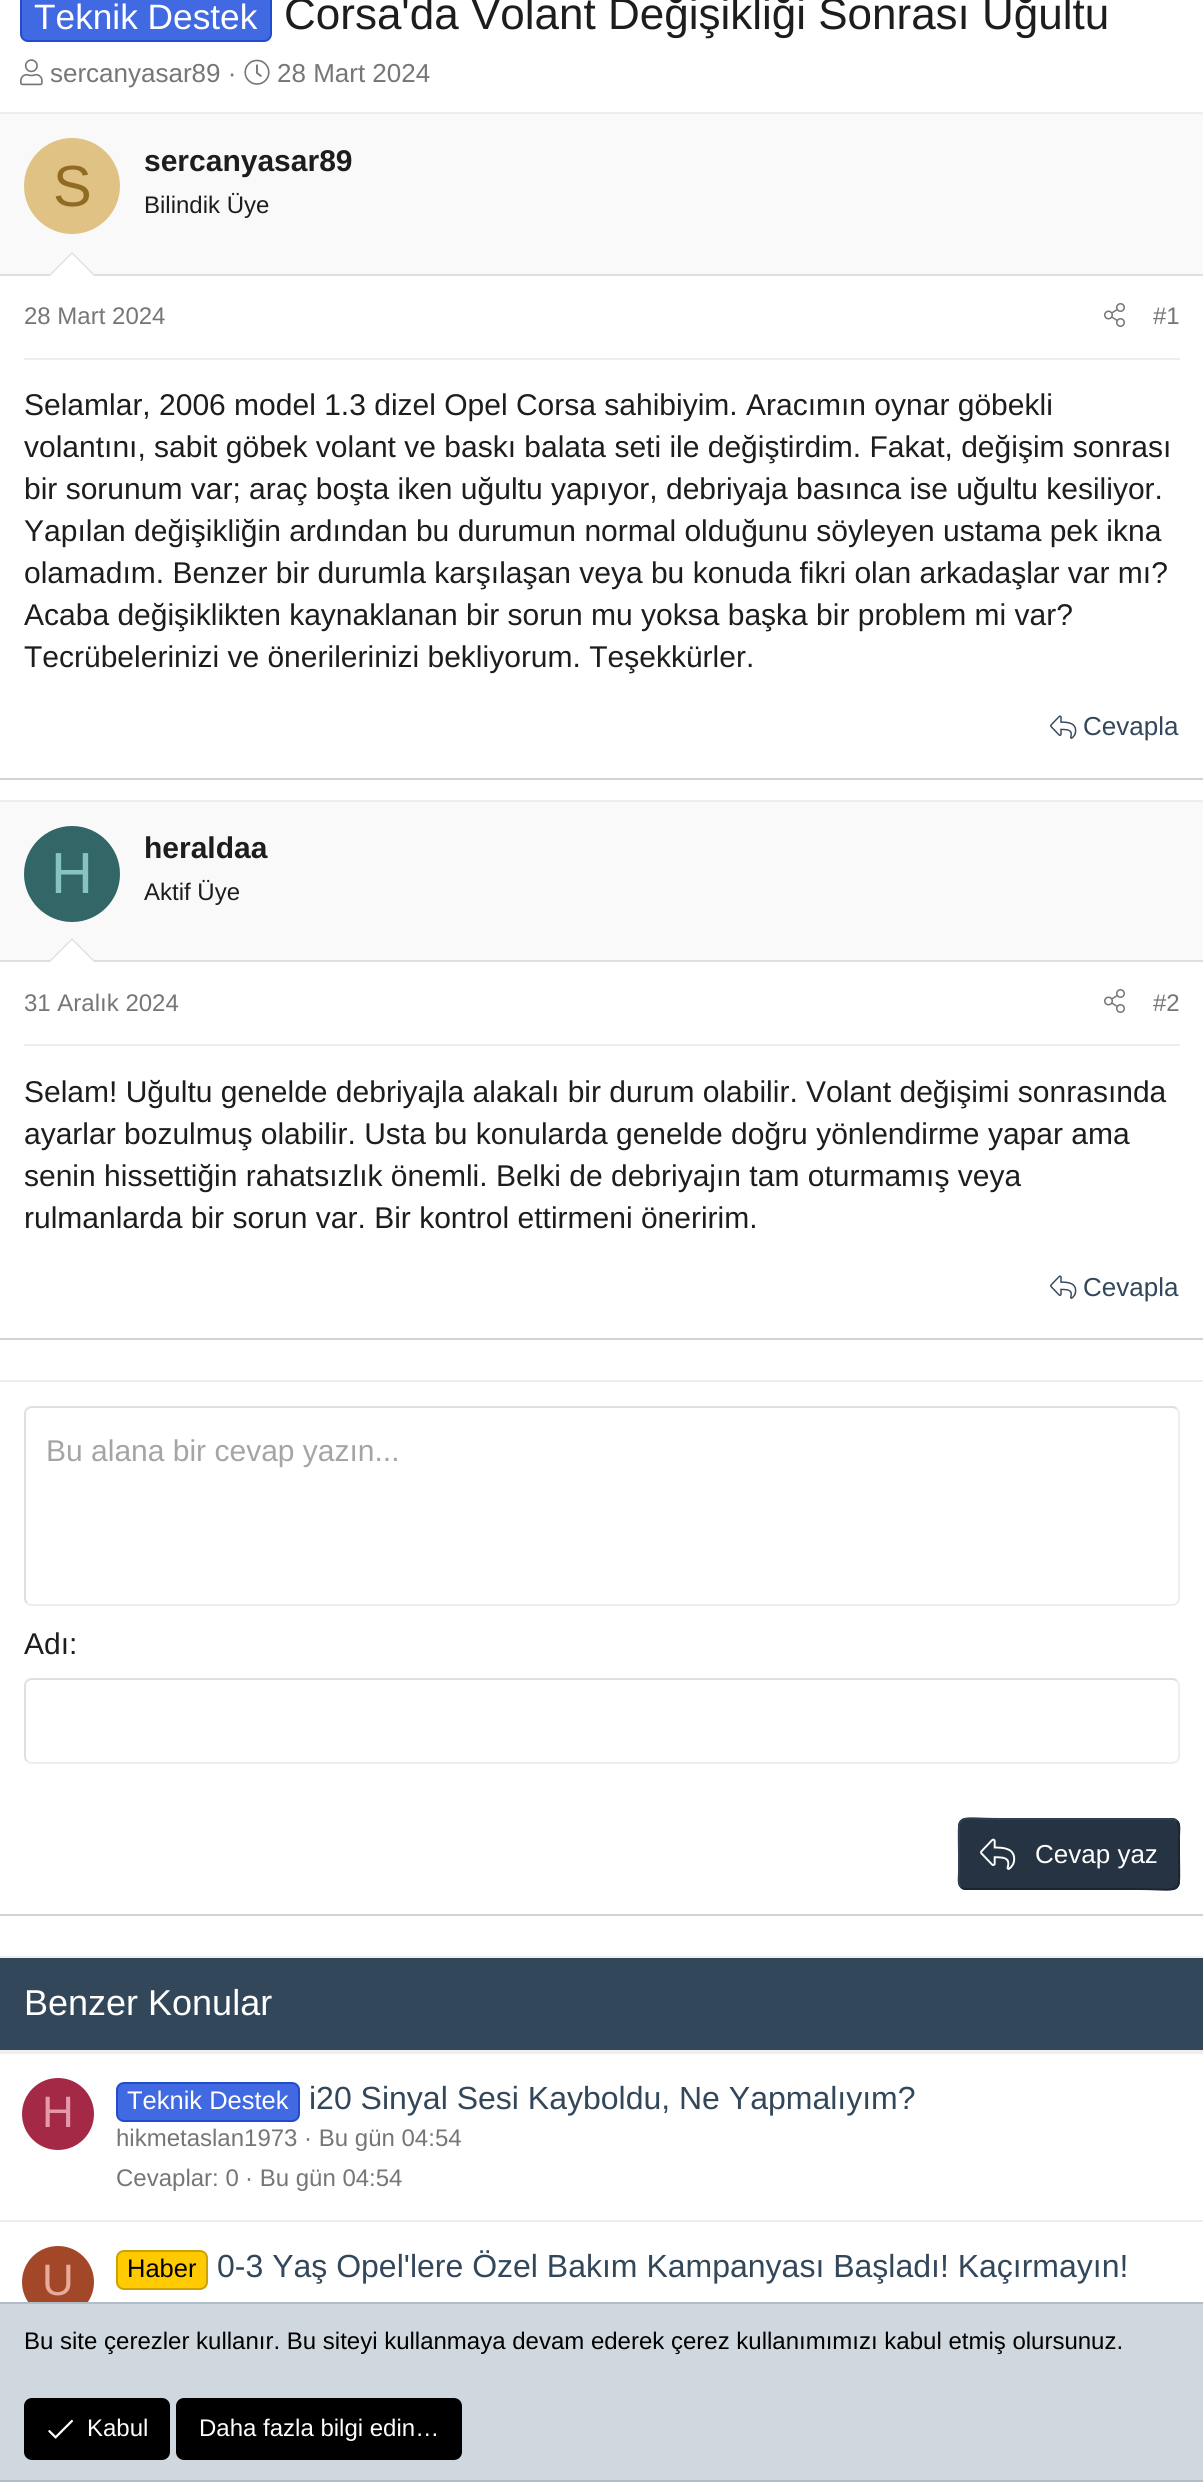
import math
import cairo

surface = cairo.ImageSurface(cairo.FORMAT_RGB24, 1203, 2482)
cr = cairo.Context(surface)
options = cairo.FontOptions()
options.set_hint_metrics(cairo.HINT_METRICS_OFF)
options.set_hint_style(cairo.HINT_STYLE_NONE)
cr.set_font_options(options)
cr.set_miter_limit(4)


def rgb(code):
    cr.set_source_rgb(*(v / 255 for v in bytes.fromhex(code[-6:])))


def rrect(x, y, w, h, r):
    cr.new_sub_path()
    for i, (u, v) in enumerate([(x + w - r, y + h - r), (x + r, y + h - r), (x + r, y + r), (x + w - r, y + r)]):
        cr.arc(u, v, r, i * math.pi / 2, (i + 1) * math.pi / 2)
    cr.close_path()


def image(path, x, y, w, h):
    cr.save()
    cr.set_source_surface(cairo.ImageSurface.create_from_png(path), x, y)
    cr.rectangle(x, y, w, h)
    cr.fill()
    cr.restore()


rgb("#ffffff")
cr.paint()
rgb("#4169e1")
rrect(21, -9, 250, 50, 7)
cr.fill_preserve()
rgb("#214cce")
cr.stroke()
image("img/1.png", 20, 59, 23, 27)
image("img/2.png", 244, 59, 26, 26)
for x, y, w, h, color in [
    (0, 112, 1203, 2, "#eeeeee"),
    (0, 778, 1203, 2, "#d2d2d2"),
    (0, 114, 1203, 160, "#f9f9f9"),
    (0, 274, 1203, 2, "#dfdfdf"),
]:
    rgb(color)
    cr.rectangle(x, y, w, h)
    cr.fill()
rgb("#e0c285")
cr.arc(72, 186, 48, 0, 2 * math.pi)
cr.fill()
rgb("#dfdfdf")
cr.new_path()
cr.move_to(96, 276)
cr.line_to(48, 276)
cr.line_to(72, 252)
cr.close_path()
cr.fill()
rgb("#ffffff")
cr.new_path()
cr.move_to(94, 276)
cr.line_to(50, 276)
cr.line_to(72, 254)
cr.close_path()
cr.fill()
rgb("#eeeeee")
cr.rectangle(24, 358, 1156, 2)
cr.fill()
image("img/3.png", 1104, 303, 21, 24)
image("img/4.png", 1050, 715, 27, 24)
for x, y, w, h, color in [
    (0, 800, 1203, 2, "#eeeeee"),
    (0, 1338, 1203, 2, "#d2d2d2"),
    (0, 802, 1203, 158, "#f9f9f9"),
    (0, 960, 1203, 2, "#dfdfdf"),
]:
    rgb(color)
    cr.rectangle(x, y, w, h)
    cr.fill()
rgb("#336666")
cr.arc(72, 874, 48, 0, 2 * math.pi)
cr.fill()
rgb("#dfdfdf")
cr.new_path()
cr.move_to(96, 962)
cr.line_to(48, 962)
cr.line_to(72, 938)
cr.close_path()
cr.fill()
rgb("#ffffff")
cr.new_path()
cr.move_to(94, 962)
cr.line_to(50, 962)
cr.line_to(72, 940)
cr.close_path()
cr.fill()
rgb("#eeeeee")
cr.rectangle(24, 1044, 1156, 2)
cr.fill()
image("img/3.png", 1104, 989, 21, 24)
image("img/4.png", 1050, 1275, 27, 24)
cr.rectangle(0, 1380, 1203, 2)
cr.fill()
rgb("#d2d2d2")
cr.rectangle(0, 1914, 1203, 2)
cr.fill()
cr.new_path()
cr.move_to(1177, 1409)
cr.curve_to(1178.5, 1410.5, 1179, 1412, 1179, 1414)
cr.line_to(1179, 1598)
cr.curve_to(1179, 1600, 1178.5, 1601.5, 1177, 1603)
cr.curve_to(1175.5, 1604.5, 1174, 1605, 1172, 1605)
cr.line_to(32, 1605)
cr.curve_to(30, 1605, 28.5, 1604.5, 27, 1603)
rgb("#eeeeee")
cr.stroke()
cr.new_path()
cr.move_to(27, 1603)
cr.curve_to(25.5, 1601.5, 25, 1600, 25, 1598)
cr.line_to(25, 1414)
cr.curve_to(25, 1412, 25.5, 1410.5, 27, 1409)
cr.curve_to(28.5, 1407.5, 30, 1407, 32, 1407)
cr.line_to(1172, 1407)
cr.curve_to(1174, 1407, 1175.5, 1407.5, 1177, 1409)
rgb("#dfdfdf")
cr.stroke()
cr.new_path()
cr.move_to(1177, 1681)
cr.curve_to(1178.5, 1682.5, 1179, 1684, 1179, 1686)
cr.line_to(1179, 1756)
cr.curve_to(1179, 1758, 1178.5, 1759.5, 1177, 1761)
cr.curve_to(1175.5, 1762.5, 1174, 1763, 1172, 1763)
cr.line_to(32, 1763)
cr.curve_to(30, 1763, 28.5, 1762.5, 27, 1761)
rgb("#eeeeee")
cr.stroke()
cr.new_path()
cr.move_to(27, 1761)
cr.curve_to(25.5, 1759.5, 25, 1758, 25, 1756)
cr.line_to(25, 1686)
cr.curve_to(25, 1684, 25.5, 1682.5, 27, 1681)
cr.curve_to(28.5, 1679.5, 30, 1679, 32, 1679)
cr.line_to(1172, 1679)
cr.curve_to(1174, 1679, 1175.5, 1679.5, 1177, 1681)
rgb("#dfdfdf")
cr.stroke()
rgb("#253342")
rrect(958, 1818, 222, 72, 8)
cr.fill()
cr.new_path()
cr.move_to(1177, 1821)
cr.curve_to(1180.5, 1824.5, 1179, 1831.5, 1179, 1835.5)
cr.line_to(1179, 1854)
cr.curve_to(1179, 1897.5, 1185, 1889, 1137.5, 1889)
cr.line_to(966, 1889)
cr.curve_to(964, 1889, 962.5, 1888.5, 961, 1887)
rgb("#1c2632")
cr.stroke()
cr.new_path()
cr.move_to(961, 1887)
cr.curve_to(957.5, 1883.5, 959, 1876.5, 959, 1872.5)
cr.line_to(959, 1854)
cr.curve_to(959, 1810.5, 953, 1819, 1000.5, 1819)
cr.line_to(1172, 1819)
cr.curve_to(1174, 1819, 1175.5, 1819.5, 1177, 1821)
rgb("#2e4052")
cr.stroke()
image("img/5.png", 980, 1838, 36, 32)
for x, y, w, h, color in [
    (0, 1956, 1203, 2, "#eeeeee"),
    (0, 1958, 1203, 92, "#33475b"),
    (0, 2050, 1203, 4, "#eeeeee"),
]:
    rgb(color)
    cr.rectangle(x, y, w, h)
    cr.fill()
rgb("#a32947")
cr.arc(58, 2114, 36, 0, 2 * math.pi)
cr.fill()
rgb("#4169e1")
rrect(117, 2083, 182, 38, 7)
cr.fill_preserve()
rgb("#214cce")
cr.stroke()
rgb("#eeeeee")
cr.rectangle(0, 2220, 1203, 2)
cr.fill()
rgb("#a34729")
cr.arc(58, 2282, 36, 0, 2 * math.pi)
cr.fill()
rgb("#ffcb00")
rrect(117, 2251, 90, 38, 7)
cr.fill_preserve()
rgb("#cca200")
cr.stroke()
for x, y, w, h, color in [
    (0, 2304, 1203, 176, "#cfd7df"),
    (0, 2302, 1203, 2, "#b0becb"),
    (0, 2480, 1203, 2, "#b0becb"),
]:
    rgb(color)
    cr.rectangle(x, y, w, h)
    cr.fill()
rgb("#000000")
rrect(25, 2399, 144, 60, 7)
cr.fill_preserve()
cr.stroke()
image("img/6.png", 48, 2419, 26, 20)
rrect(177, 2399, 284, 60, 7)
cr.fill_preserve()
cr.stroke()
cr.select_font_face("Liberation Sans")
cr.set_font_size(35.25)
rgb("#ffffff")
cr.move_to(34, 29)
cr.show_text("Teknik Destek")
cr.set_font_size(44)
rgb("#1d1d1d")
cr.move_to(284, 29)
cr.show_text("Corsa'da Volant Değişikliği Sonrası Uğultu")
cr.set_font_size(26)
rgb("#767676")
cr.move_to(50, 82)
cr.show_text("sercanyasar89 ·")
cr.move_to(277, 82)
cr.show_text("28 Mart 2024")
cr.set_font_size(58)
rgb("#8f6b24")
cr.move_to(53, 206)
cr.show_text("S")
cr.select_font_face("Liberation Sans", cairo.FONT_SLANT_NORMAL, cairo.FONT_WEIGHT_BOLD)
cr.set_font_size(30)
rgb("#1d1d1d")
cr.move_to(144, 171)
cr.show_text("sercanyasar89")
cr.select_font_face("Liberation Sans")
cr.set_font_size(24)
cr.move_to(144, 213)
cr.show_text("Bilindik Üye")
rgb("#767676")
cr.move_to(24, 324)
cr.show_text("28 Mart 2024")
cr.move_to(1153, 324)
cr.show_text("#1")
cr.set_font_size(30)
rgb("#1d1d1d")
for x, y, s in [
    (24, 415, "Selamlar, 2006 model 1.3 dizel Opel Corsa sahibiyim. Aracımın oynar göbekli"),
    (24, 457, "volantını, sabit göbek volant ve baskı balata seti ile değiştirdim. Fakat, değişim sonrası"),
    (24, 499, "bir sorunum var; araç boşta iken uğultu yapıyor, debriyaja basınca ise uğultu kesiliyor."),
    (24, 541, "Yapılan değişikliğin ardından bu durumun normal olduğunu söyleyen ustama pek ikna"),
    (24, 583, "olamadım. Benzer bir durumla karşılaşan veya bu konuda fikri olan arkadaşlar var mı?"),
    (24, 625, "Acaba değişiklikten kaynaklanan bir sorun mu yoksa başka bir problem mi var?"),
    (24, 667, "Tecrübelerinizi ve önerilerinizi bekliyorum. Teşekkürler."),
]:
    cr.move_to(x, y)
    cr.show_text(s)
cr.set_font_size(26)
rgb("#33475b")
cr.move_to(1083, 735)
cr.show_text("Cevapla")
cr.set_font_size(58)
rgb("#88c3c3")
cr.move_to(51, 893)
cr.show_text("H")
cr.select_font_face("Liberation Sans", cairo.FONT_SLANT_NORMAL, cairo.FONT_WEIGHT_BOLD)
cr.set_font_size(30)
rgb("#1d1d1d")
cr.move_to(144, 858)
cr.show_text("heraldaa")
cr.select_font_face("Liberation Sans")
cr.set_font_size(24)
cr.move_to(144, 900)
cr.show_text("Aktif Üye")
rgb("#767676")
cr.move_to(24, 1011)
cr.show_text("31 Aralık 2024")
cr.move_to(1153, 1011)
cr.show_text("#2")
cr.set_font_size(30)
rgb("#1d1d1d")
for x, y, s in [
    (24, 1102, "Selam! Uğultu genelde debriyajla alakalı bir durum olabilir. Volant değişimi sonrasında"),
    (24, 1144, "ayarlar bozulmuş olabilir. Usta bu konularda genelde doğru yönlendirme yapar ama"),
    (24, 1186, "senin hissettiğin rahatsızlık önemli. Belki de debriyajın tam oturmamış veya"),
    (24, 1228, "rulmanlarda bir sorun var. Bir kontrol ettirmeni öneririm."),
]:
    cr.move_to(x, y)
    cr.show_text(s)
cr.set_font_size(26)
rgb("#33475b")
cr.move_to(1083, 1296)
cr.show_text("Cevapla")
cr.set_font_size(30)
rgb("#a5a5a5")
cr.move_to(46, 1461)
cr.show_text("Bu alana bir cevap yazın...")
rgb("#1d1d1d")
cr.move_to(24, 1654)
cr.show_text("Adı:")
cr.set_font_size(26)
rgb("#ffffff")
cr.move_to(1035, 1863)
cr.show_text("Cevap yaz")
cr.set_font_size(36)
cr.move_to(24, 2015)
cr.show_text("Benzer Konular")
cr.set_font_size(44)
rgb("#e699ac")
cr.move_to(42, 2127)
cr.show_text("H")
cr.set_font_size(25.5)
rgb("#ffffff")
cr.move_to(127, 2109)
cr.show_text("Teknik Destek")
cr.set_font_size(32)
rgb("#33475b")
cr.move_to(309, 2109)
cr.show_text("i20 Sinyal Sesi Kayboldu, Ne Yapmalıyım?")
cr.set_font_size(24)
rgb("#767676")
for x, y, s in [
    (116, 2146, "hikmetaslan1973 · Bu gün 04:54"),
    (116, 2186, "Cevaplar: 0"),
    (245, 2186, "· Bu gün 04:54"),
]:
    cr.move_to(x, y)
    cr.show_text(s)
cr.set_font_size(44)
rgb("#e6ac99")
cr.move_to(42, 2295)
cr.show_text("U")
cr.set_font_size(25.5)
rgb("#000000")
cr.move_to(127, 2277)
cr.show_text("Haber")
cr.set_font_size(32)
rgb("#33475b")
cr.move_to(217, 2277)
cr.show_text("0-3 Yaş Opel'lere Özel Bakım Kampanyası Başladı! Kaçırmayın!")
cr.set_font_size(24)
rgb("#000000")
cr.move_to(24, 2349)
cr.show_text("Bu site çerezler kullanır. Bu siteyi kullanmaya devam ederek çerez kullanımımızı kabul etmiş olursunuz.")
rgb("#ffffff")
cr.move_to(87, 2436)
cr.show_text("Kabul")
cr.move_to(199, 2436)
cr.show_text("Daha fazla bilgi edin…")
surface.write_to_png("page.png")
